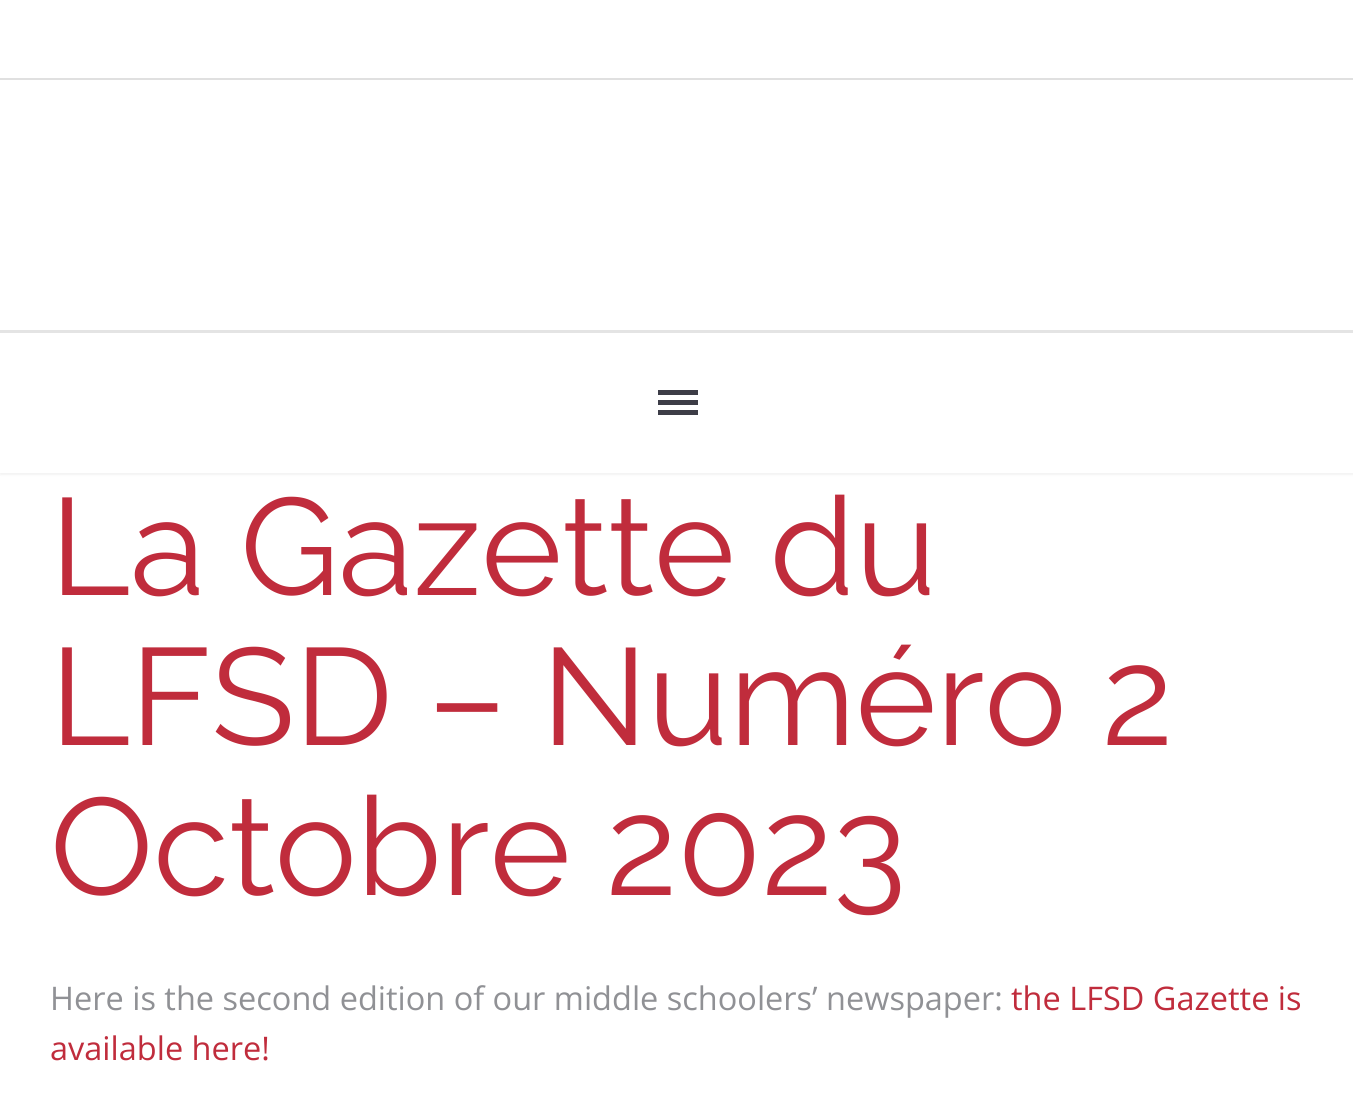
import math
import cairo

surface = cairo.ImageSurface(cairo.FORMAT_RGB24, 1353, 1114)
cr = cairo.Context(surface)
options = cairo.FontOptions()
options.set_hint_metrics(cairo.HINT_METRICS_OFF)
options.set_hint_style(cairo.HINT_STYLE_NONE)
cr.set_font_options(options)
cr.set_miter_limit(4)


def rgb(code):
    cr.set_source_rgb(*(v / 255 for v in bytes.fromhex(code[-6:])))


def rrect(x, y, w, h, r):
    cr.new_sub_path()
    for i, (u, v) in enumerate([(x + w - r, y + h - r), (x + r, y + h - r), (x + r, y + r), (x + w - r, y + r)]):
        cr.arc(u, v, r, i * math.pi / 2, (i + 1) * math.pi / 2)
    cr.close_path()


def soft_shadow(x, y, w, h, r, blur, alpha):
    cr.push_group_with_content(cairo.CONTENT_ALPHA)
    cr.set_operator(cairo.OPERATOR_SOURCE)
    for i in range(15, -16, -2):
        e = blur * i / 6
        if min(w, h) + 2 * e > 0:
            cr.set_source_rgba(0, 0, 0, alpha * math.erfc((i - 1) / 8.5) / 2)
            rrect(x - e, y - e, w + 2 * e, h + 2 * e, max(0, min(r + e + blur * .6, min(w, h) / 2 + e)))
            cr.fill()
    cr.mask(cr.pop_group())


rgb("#ffffff")
cr.paint()
cr.save()
cr.set_fill_rule(cairo.FILL_RULE_EVEN_ODD)
cr.new_path()
cr.move_to(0, 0)
cr.line_to(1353, 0)
cr.line_to(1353, 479)
cr.line_to(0, 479)
cr.close_path()
cr.move_to(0, 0)
cr.line_to(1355, 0)
cr.line_to(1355, 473)
cr.line_to(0, 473)
cr.close_path()
cr.clip()
rgb("#000000")
soft_shadow(0, 3, 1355, 472, 0, 1, 0.05)
cr.restore()
rgb("#e0e0e0")
cr.rectangle(0, 78, 1353, 2)
cr.fill()
cr.set_source_rgba(1, 1, 1, 0.9)
cr.rectangle(0, 472, 1353, 1)
cr.fill()
rgb("#e4e4e4")
cr.rectangle(0, 330, 1353, 3)
cr.fill()
rgb("#3d3d47")
cr.rectangle(658, 390, 40, 5)
cr.rectangle(658, 410, 40, 5)
cr.rectangle(658, 400, 40, 5)
cr.fill()
cr.select_font_face("Raleway")
cr.set_font_size(137.5)
rgb("#c02c3c")
for x, y, s in [
    (50, 595, "La Gazette du"),
    (50, 745, "LFSD – Numéro 2"),
    (50, 895, "Octobre 2023"),
]:
    cr.move_to(x, y)
    cr.show_text(s)
cr.select_font_face("Open Sans")
cr.set_font_size(32.5)
rgb("#909195")
cr.move_to(50, 1010)
cr.show_text("Here is the second edition of our middle schoolers’ newspaper:")
rgb("#c02c3c")
cr.move_to(1011, 1010)
cr.show_text("the LFSD Gazette is")
cr.move_to(50, 1060)
cr.show_text("available here!")
surface.write_to_png("page.png")
